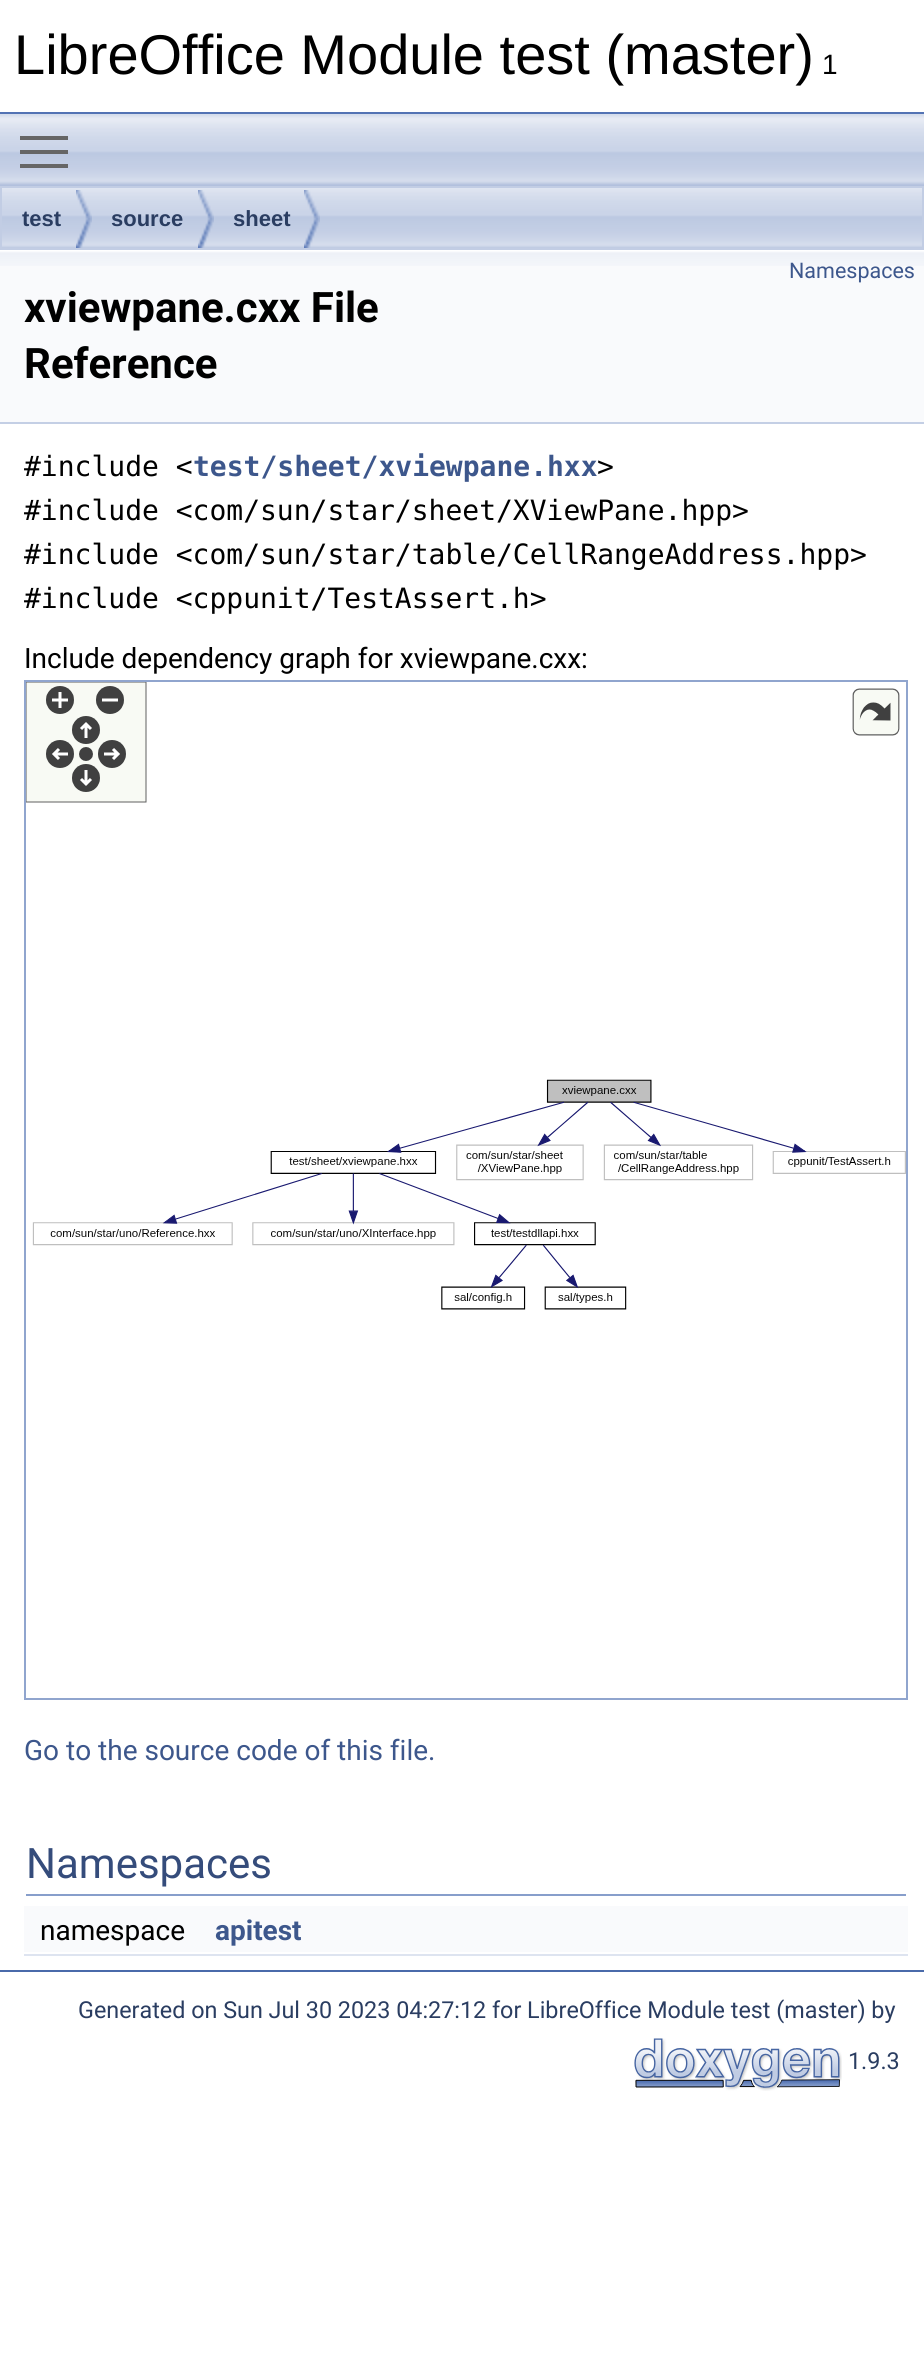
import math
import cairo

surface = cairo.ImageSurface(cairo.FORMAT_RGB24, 924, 2364)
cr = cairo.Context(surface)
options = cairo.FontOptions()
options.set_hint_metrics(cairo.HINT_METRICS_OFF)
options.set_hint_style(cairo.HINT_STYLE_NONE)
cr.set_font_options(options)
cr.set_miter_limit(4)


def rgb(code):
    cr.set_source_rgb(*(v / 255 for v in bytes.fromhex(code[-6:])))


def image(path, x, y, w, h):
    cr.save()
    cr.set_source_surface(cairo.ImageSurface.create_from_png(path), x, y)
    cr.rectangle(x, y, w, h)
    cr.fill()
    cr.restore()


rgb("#ffffff")
cr.paint()
rgb("#5373b4")
cr.rectangle(0, 112, 924, 2)
cr.fill()
image("img/1.png", 0, 114, 924, 72)
for x, y, w, h, color in [
    (20, 150, 48, 4, "#666666"),
    (20, 136, 48, 4, "#666666"),
    (20, 164, 48, 4, "#666666"),
]:
    rgb(color)
    cr.rectangle(x, y, w, h)
    cr.fill()
image("img/2.png", 2, 188, 920, 60)
cr.rectangle(1, 187, 922, 62)
rgb("#c2cde4")
cr.stroke()
image("img/3.png", 76, 190, 16, 58)
image("img/3.png", 198, 190, 16, 58)
image("img/3.png", 304, 190, 16, 58)
rgb("#f9fafc")
cr.rectangle(0, 266, 924, 156)
cr.fill()
image("img/4.png", 0, 250, 924, 16)
rgb("#c4cfe5")
cr.rectangle(0, 422, 924, 2)
cr.fill()
cr.rectangle(25, 681, 882, 1018)
rgb("#90a5ce")
cr.stroke()
image("img/5.png", 26, 682, 880, 628)
for x, y, w, h, color in [
    (26, 1894, 880, 2, "#879ecb"),
    (24, 1906, 884, 46, "#f9fafc"),
    (24, 1954, 884, 2, "#dee4f0"),
    (0, 1970, 924, 2, "#4a6aaa"),
]:
    rgb(color)
    cr.rectangle(x, y, w, h)
    cr.fill()
image("img/6.png", 634, 2038, 208, 53)
cr.select_font_face("Liberation Sans")
cr.set_font_size(56)
rgb("#000000")
cr.move_to(14, 74)
cr.show_text("LibreOffice Module test (master)")
cr.set_font_size(28)
cr.move_to(822, 74)
cr.show_text("1")
cr.select_font_face("Liberation Sans", cairo.FONT_SLANT_NORMAL, cairo.FONT_WEIGHT_BOLD)
cr.set_font_size(22)
rgb("#2a3d61")
for x, y, s in [
    (22, 226, "test"),
    (111, 226, "source"),
    (233, 226, "sheet"),
]:
    cr.move_to(x, y)
    cr.show_text(s)
cr.select_font_face("Roboto")
cr.set_font_size(21.5)
rgb("#3d578c")
cr.move_to(789, 278)
cr.show_text("Namespaces")
cr.select_font_face("Roboto", cairo.FONT_SLANT_NORMAL, cairo.FONT_WEIGHT_BOLD)
cr.set_font_size(42)
rgb("#000000")
cr.move_to(24, 322)
cr.show_text("xviewpane.cxx File")
cr.move_to(24, 378)
cr.show_text("Reference")
cr.select_font_face("DejaVu Sans Mono")
cr.set_font_size(28)
cr.move_to(24, 476)
cr.show_text("#include <")
cr.select_font_face("DejaVu Sans Mono", cairo.FONT_SLANT_NORMAL, cairo.FONT_WEIGHT_BOLD)
rgb("#3d578c")
cr.move_to(193, 476)
cr.show_text("test/sheet/xviewpane.hxx")
cr.select_font_face("DejaVu Sans Mono")
rgb("#000000")
for x, y, s in [
    (597, 476, ">"),
    (24, 520, "#include <com/sun/star/sheet/XViewPane.hpp>"),
    (24, 564, "#include <com/sun/star/table/CellRangeAddress.hpp>"),
    (24, 608, "#include <cppunit/TestAssert.h>"),
]:
    cr.move_to(x, y)
    cr.show_text(s)
cr.select_font_face("Roboto")
cr.move_to(24, 668)
cr.show_text("Include dependency graph for xviewpane.cxx:")
rgb("#3d578c")
cr.move_to(24, 1760)
cr.show_text("Go to the source code of this file.")
cr.set_font_size(42)
rgb("#354c7b")
cr.move_to(26, 1878)
cr.show_text("Namespaces")
cr.set_font_size(28)
rgb("#000000")
cr.move_to(40, 1940)
cr.show_text("namespace")
cr.select_font_face("Roboto", cairo.FONT_SLANT_NORMAL, cairo.FONT_WEIGHT_BOLD)
rgb("#3d578c")
cr.move_to(215, 1940)
cr.show_text("apitest")
cr.select_font_face("Roboto")
cr.set_font_size(23.35)
rgb("#2a3d61")
cr.move_to(78, 2018)
cr.show_text("Generated on Sun Jul 30 2023 04:27:12 for LibreOffice Module test (master) by")
cr.move_to(848, 2069)
cr.show_text("1.9.3")
surface.write_to_png("page.png")
